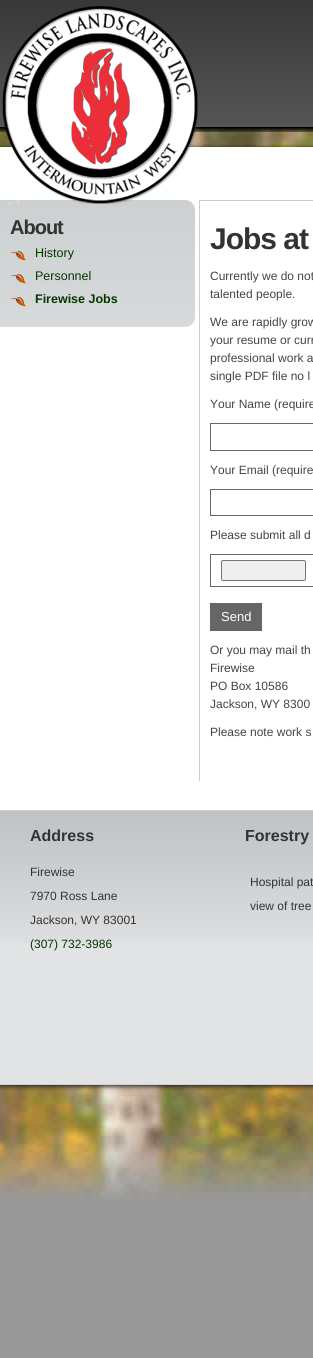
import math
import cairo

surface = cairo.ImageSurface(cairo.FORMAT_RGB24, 313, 1358)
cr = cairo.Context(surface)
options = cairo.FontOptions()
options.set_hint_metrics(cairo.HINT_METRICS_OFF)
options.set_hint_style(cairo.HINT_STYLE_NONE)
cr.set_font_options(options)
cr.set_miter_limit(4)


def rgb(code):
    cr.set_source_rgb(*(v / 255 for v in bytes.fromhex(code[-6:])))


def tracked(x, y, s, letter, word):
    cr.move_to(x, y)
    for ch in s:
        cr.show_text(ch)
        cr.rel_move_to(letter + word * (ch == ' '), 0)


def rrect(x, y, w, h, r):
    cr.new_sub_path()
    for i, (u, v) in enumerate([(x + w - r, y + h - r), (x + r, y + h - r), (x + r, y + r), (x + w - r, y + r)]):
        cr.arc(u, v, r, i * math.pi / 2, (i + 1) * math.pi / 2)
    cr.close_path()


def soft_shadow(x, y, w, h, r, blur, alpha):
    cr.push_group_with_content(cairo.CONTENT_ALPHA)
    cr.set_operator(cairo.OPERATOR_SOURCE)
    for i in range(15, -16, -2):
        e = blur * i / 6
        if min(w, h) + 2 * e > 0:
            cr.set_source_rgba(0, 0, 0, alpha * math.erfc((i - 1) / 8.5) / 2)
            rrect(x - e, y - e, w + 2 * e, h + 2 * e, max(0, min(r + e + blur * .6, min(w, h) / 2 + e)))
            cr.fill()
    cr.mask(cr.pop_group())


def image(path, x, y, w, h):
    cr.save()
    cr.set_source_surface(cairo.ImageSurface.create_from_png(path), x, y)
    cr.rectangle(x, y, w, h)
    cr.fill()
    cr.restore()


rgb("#999999")
cr.paint()
image("img/1.png", 0, 128, 313, 1072)
image("img/2.png", 0, 0, 313, 132)
rgb("#111111")
soft_shadow(0, 148, 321, 938, 0, 2.5, 1)
rgb("#ffffff")
cr.rectangle(0, 147, 313, 663)
cr.fill()
rgb("#e2e3e5")
cr.new_path()
cr.move_to(0, 200)
cr.line_to(185, 200)
cr.curve_to(190.5, 200, 195, 204.5, 195, 210)
cr.line_to(195, 317)
cr.curve_to(195, 322.5, 190.5, 327, 185, 327)
cr.line_to(0, 327)
cr.close_path()
cr.fill()
image("img/4.png", 0, 200, 195, 127)
image("img/3.png", 2, 6, 196, 198)
image("img/5.png", 11, 251, 16, 10)
image("img/6.png", 11, 274, 15, 10)
image("img/7.png", 11, 297, 15, 10)
rgb("#cccccc")
cr.rectangle(199, 200, 114, 1)
cr.fill()
cr.rectangle(199, 200, 1, 581)
cr.fill()
cr.rectangle(210.5, 423.5, 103, 27)
rgb("#666666")
cr.set_line_width(1)
cr.stroke()
cr.rectangle(210.5, 489.5, 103, 26)
cr.stroke()
cr.rectangle(210.5, 554.5, 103, 32)
cr.stroke()
rgb("#efefef")
rrect(221.5, 560.5, 84, 20, 1.5)
cr.fill_preserve()
rgb("#767676")
cr.stroke()
rgb("#666666")
cr.rectangle(210, 603, 52, 28)
cr.fill()
rgb("#e2e3e5")
cr.rectangle(0, 943, 313, 141)
cr.fill()
image("img/8.png", 0, 811, 313, 132)
rgb("#d1d1d1")
cr.rectangle(0, 810, 313, 1)
cr.fill()
cr.rectangle(0, 1084, 313, 1)
cr.fill()
cr.select_font_face("Liberation Sans", cairo.FONT_SLANT_NORMAL, cairo.FONT_WEIGHT_BOLD)
cr.set_font_size(20)
rgb("#333333")
tracked(10, 234, "About", -1, 0)
cr.select_font_face("Liberation Sans")
cr.set_font_size(12.5)
rgb("#073600")
cr.move_to(35, 257)
cr.show_text("History")
cr.move_to(35, 280)
cr.show_text("Personnel")
cr.select_font_face("Liberation Sans", cairo.FONT_SLANT_NORMAL, cairo.FONT_WEIGHT_BOLD)
cr.move_to(35, 303)
cr.show_text("Firewise Jobs")
cr.set_font_size(30)
rgb("#333333")
tracked(210, 249, "Jobs at", -1, 0)
cr.select_font_face("Liberation Sans")
cr.set_font_size(12)
rgb("#444444")
for x, y, s in [
    (210, 280, "Currently we do not"),
    (210, 298, "talented people."),
    (210, 326, "We are rapidly grow"),
    (210, 344, "your resume or curr"),
    (210, 362, "professional work a"),
    (210, 380, "single PDF file no l"),
    (210, 408, "Your Name (require"),
    (210, 474, "Your Email (require"),
    (210, 539, "Please submit all d"),
]:
    cr.move_to(x, y)
    cr.show_text(s)
cr.set_font_size(13)
rgb("#ffffff")
cr.move_to(221, 621)
cr.show_text("Send")
cr.set_font_size(12)
rgb("#444444")
for x, y, s in [
    (210, 654, "Or you may mail th"),
    (210, 672, "Firewise"),
    (210, 690, "PO Box 10586"),
    (210, 708, "Jackson, WY 8300"),
    (210, 736, "Please note work s"),
]:
    cr.move_to(x, y)
    cr.show_text(s)
cr.select_font_face("Liberation Sans", cairo.FONT_SLANT_NORMAL, cairo.FONT_WEIGHT_BOLD)
cr.set_font_size(16)
rgb("#333333")
cr.move_to(30, 841)
cr.show_text("Address")
cr.select_font_face("Liberation Sans")
cr.set_font_size(12)
for x, y, s in [
    (30, 876, "Firewise"),
    (30, 900, "7970 Ross Lane"),
    (30, 924, "Jackson, WY 83001"),
]:
    cr.move_to(x, y)
    cr.show_text(s)
rgb("#073600")
cr.move_to(30, 948)
cr.show_text("(307) 732-3986")
cr.select_font_face("Liberation Sans", cairo.FONT_SLANT_NORMAL, cairo.FONT_WEIGHT_BOLD)
cr.set_font_size(16)
rgb("#333333")
cr.move_to(245, 841)
cr.show_text("Forestry")
cr.select_font_face("Liberation Sans")
cr.set_font_size(12)
cr.move_to(250, 886)
cr.show_text("Hospital pat")
cr.move_to(250, 910)
cr.show_text("view of tree")
surface.write_to_png("page.png")
